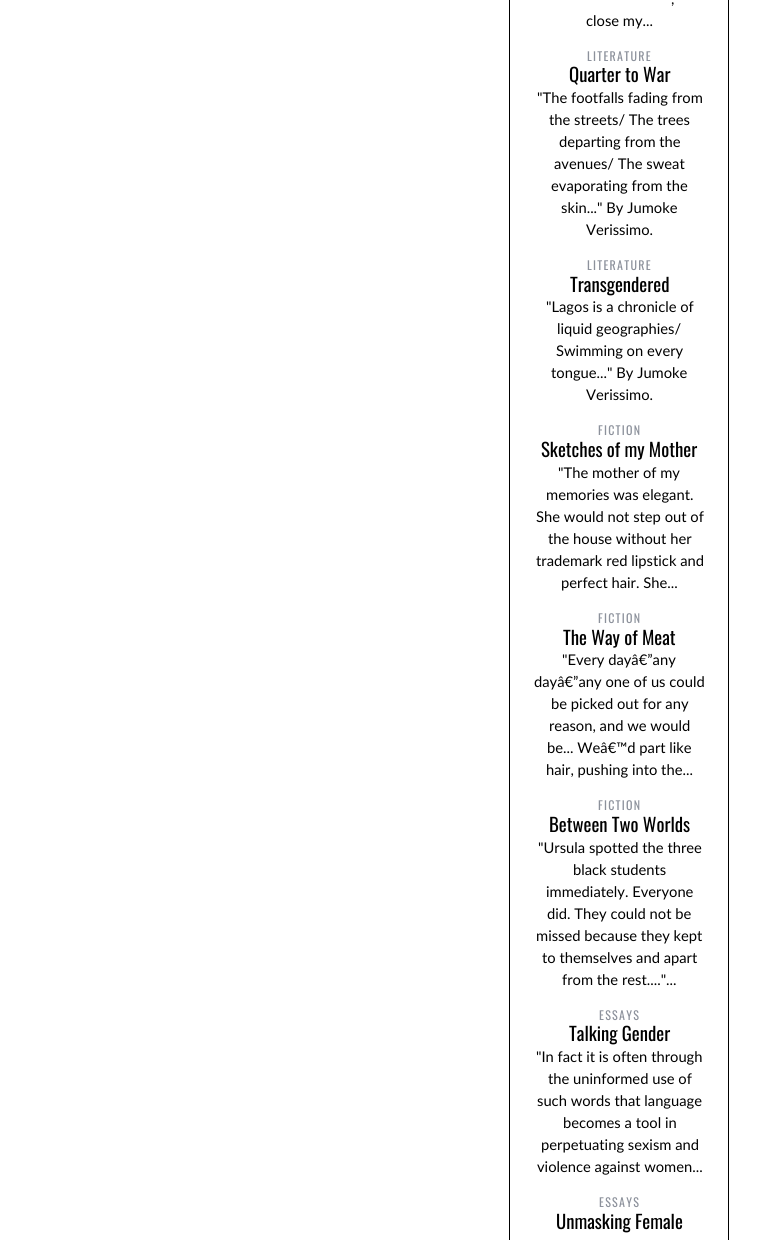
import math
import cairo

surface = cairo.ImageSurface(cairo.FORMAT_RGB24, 758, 1240)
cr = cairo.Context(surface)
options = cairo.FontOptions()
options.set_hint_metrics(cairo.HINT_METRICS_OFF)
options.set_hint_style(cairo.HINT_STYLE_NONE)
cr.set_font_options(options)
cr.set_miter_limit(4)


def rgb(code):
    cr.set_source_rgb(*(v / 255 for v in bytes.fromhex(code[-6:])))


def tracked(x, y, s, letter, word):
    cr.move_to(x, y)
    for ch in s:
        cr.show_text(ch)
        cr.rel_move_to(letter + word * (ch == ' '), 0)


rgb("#ffffff")
cr.paint()
cr.rectangle(509.5, -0.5, 219, 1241)
rgb("#000000")
cr.set_line_width(1)
cr.stroke()
cr.select_font_face("Lato")
cr.set_font_size(14.75)
cr.move_to(671, 4)
cr.show_text(",")
cr.move_to(586, 26)
cr.show_text("close my...")
cr.select_font_face("Oswald")
cr.set_font_size(12)
rgb("#8c919b")
tracked(587, 61, "LITERATURE", 1.25, 0)
cr.set_font_size(18.75)
rgb("#000000")
cr.move_to(569, 82)
cr.show_text("Quarter to War")
cr.select_font_face("Lato")
cr.set_font_size(14.75)
for x, y, s in [
    (537, 103, "\"The footfalls fading from"),
    (549, 125, "the streets/ The trees"),
    (559, 147, "departing from the"),
    (554, 169, "avenues/ The sweat"),
    (551, 191, "evaporating from the"),
    (561, 213, "skin...\" By Jumoke"),
    (586, 235, "Verissimo."),
]:
    cr.move_to(x, y)
    cr.show_text(s)
cr.select_font_face("Oswald")
cr.set_font_size(12)
rgb("#8c919b")
tracked(587, 270, "LITERATURE", 1.25, 0)
cr.set_font_size(18.75)
rgb("#000000")
cr.move_to(570, 292)
cr.show_text("Transgendered")
cr.select_font_face("Lato")
cr.set_font_size(14.75)
for x, y, s in [
    (546, 312, "\"Lagos is a chronicle of"),
    (557, 334, "liquid geographies/"),
    (556, 356, "Swimming on every"),
    (551, 378, "tongue...\" By Jumoke"),
    (586, 400, "Verissimo."),
]:
    cr.move_to(x, y)
    cr.show_text(s)
cr.select_font_face("Oswald")
cr.set_font_size(12)
rgb("#8c919b")
tracked(598, 435, "FICTION", 1.25, 0)
cr.set_font_size(18.75)
rgb("#000000")
cr.move_to(541, 457)
cr.show_text("Sketches of my Mother")
cr.select_font_face("Lato")
cr.set_font_size(14.75)
for x, y, s in [
    (558, 478, "\"The mother of my"),
    (546, 500, "memories was elegant."),
    (536, 522, "She would not step out of"),
    (548, 544, "the house without her"),
    (536, 566, "trademark red lipstick and"),
    (561, 588, "perfect hair. She..."),
]:
    cr.move_to(x, y)
    cr.show_text(s)
cr.select_font_face("Oswald")
cr.set_font_size(12)
rgb("#8c919b")
tracked(598, 623, "FICTION", 1.25, 0)
cr.set_font_size(18.75)
rgb("#000000")
cr.move_to(563, 645)
cr.show_text("The Way of Meat")
cr.select_font_face("Lato")
cr.set_font_size(14.75)
for x, y, s in [
    (562, 665, "\"Every dayâ€”any"),
    (534, 687, "dayâ€”any one of us could"),
    (551, 709, "be picked out for any"),
    (549, 731, "reason, and we would"),
    (547, 753, "be... Weâ€™d part like"),
    (546, 775, "hair, pushing into the..."),
]:
    cr.move_to(x, y)
    cr.show_text(s)
cr.select_font_face("Oswald")
cr.set_font_size(12)
rgb("#8c919b")
tracked(598, 810, "FICTION", 1.25, 0)
cr.set_font_size(18.75)
rgb("#000000")
cr.move_to(549, 832)
cr.show_text("Between Two Worlds")
cr.select_font_face("Lato")
cr.set_font_size(14.75)
for x, y, s in [
    (538, 853, "\"Ursula spotted the three"),
    (573, 875, "black students"),
    (546, 897, "immediately. Everyone"),
    (547, 919, "did. They could not be"),
    (536, 941, "missed because they kept"),
    (542, 963, "to themselves and apart"),
    (562, 985, "from the rest....\"..."),
]:
    cr.move_to(x, y)
    cr.show_text(s)
cr.select_font_face("Oswald")
cr.set_font_size(12)
rgb("#8c919b")
tracked(599, 1020, "ESSAYS", 1.25, 0)
cr.set_font_size(18.75)
rgb("#000000")
cr.move_to(569, 1041)
cr.show_text("Talking Gender")
cr.select_font_face("Lato")
cr.set_font_size(14.75)
for x, y, s in [
    (536, 1062, "\"In fact it is often through"),
    (548, 1084, "the uninformed use of"),
    (537, 1106, "such words that language"),
    (563, 1128, "becomes a tool in"),
    (541, 1150, "perpetuating sexism and"),
    (537, 1172, "violence against women..."),
]:
    cr.move_to(x, y)
    cr.show_text(s)
cr.select_font_face("Oswald")
cr.set_font_size(12)
rgb("#8c919b")
tracked(599, 1207, "ESSAYS", 1.25, 0)
cr.set_font_size(18.75)
rgb("#000000")
cr.move_to(556, 1229)
cr.show_text("Unmasking Female")
surface.write_to_png("page.png")
